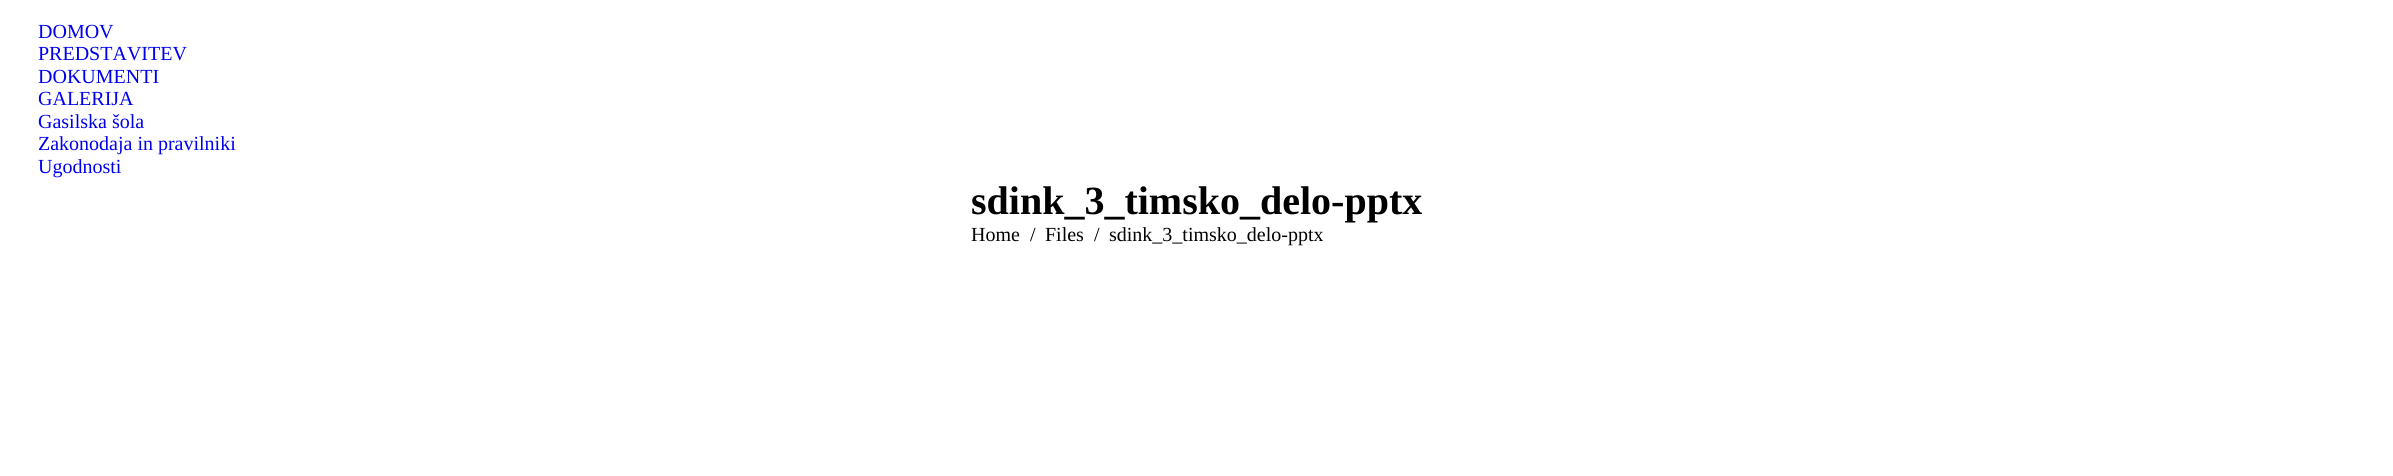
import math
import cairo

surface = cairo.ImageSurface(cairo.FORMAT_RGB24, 2393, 476)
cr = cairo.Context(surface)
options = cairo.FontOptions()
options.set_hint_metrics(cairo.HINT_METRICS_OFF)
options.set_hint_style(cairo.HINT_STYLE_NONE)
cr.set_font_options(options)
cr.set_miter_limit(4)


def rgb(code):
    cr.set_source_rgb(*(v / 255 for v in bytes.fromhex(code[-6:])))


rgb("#ffffff")
cr.paint()
cr.select_font_face("Liberation Serif")
cr.set_font_size(20)
rgb("#0000ee")
for x, y, s in [
    (38, 38, "DOMOV"),
    (38, 60, "PREDSTAVITEV"),
    (38, 83, "DOKUMENTI"),
    (38, 105, "GALERIJA"),
    (38, 128, "Gasilska šola"),
    (38, 150, "Zakonodaja in pravilniki"),
    (38, 173, "Ugodnosti"),
]:
    cr.move_to(x, y)
    cr.show_text(s)
cr.select_font_face("Liberation Serif", cairo.FONT_SLANT_NORMAL, cairo.FONT_WEIGHT_BOLD)
cr.set_font_size(40)
rgb("#000000")
cr.move_to(971, 214)
cr.show_text("sdink_3_timsko_delo-pptx")
cr.select_font_face("Liberation Serif")
cr.set_font_size(20)
for x, y, s in [
    (971, 241, "Home"),
    (1030, 241, "/"),
    (1045, 241, "Files"),
    (1094, 241, "/"),
    (1109, 241, "sdink_3_timsko_delo-pptx"),
]:
    cr.move_to(x, y)
    cr.show_text(s)
surface.write_to_png("page.png")
